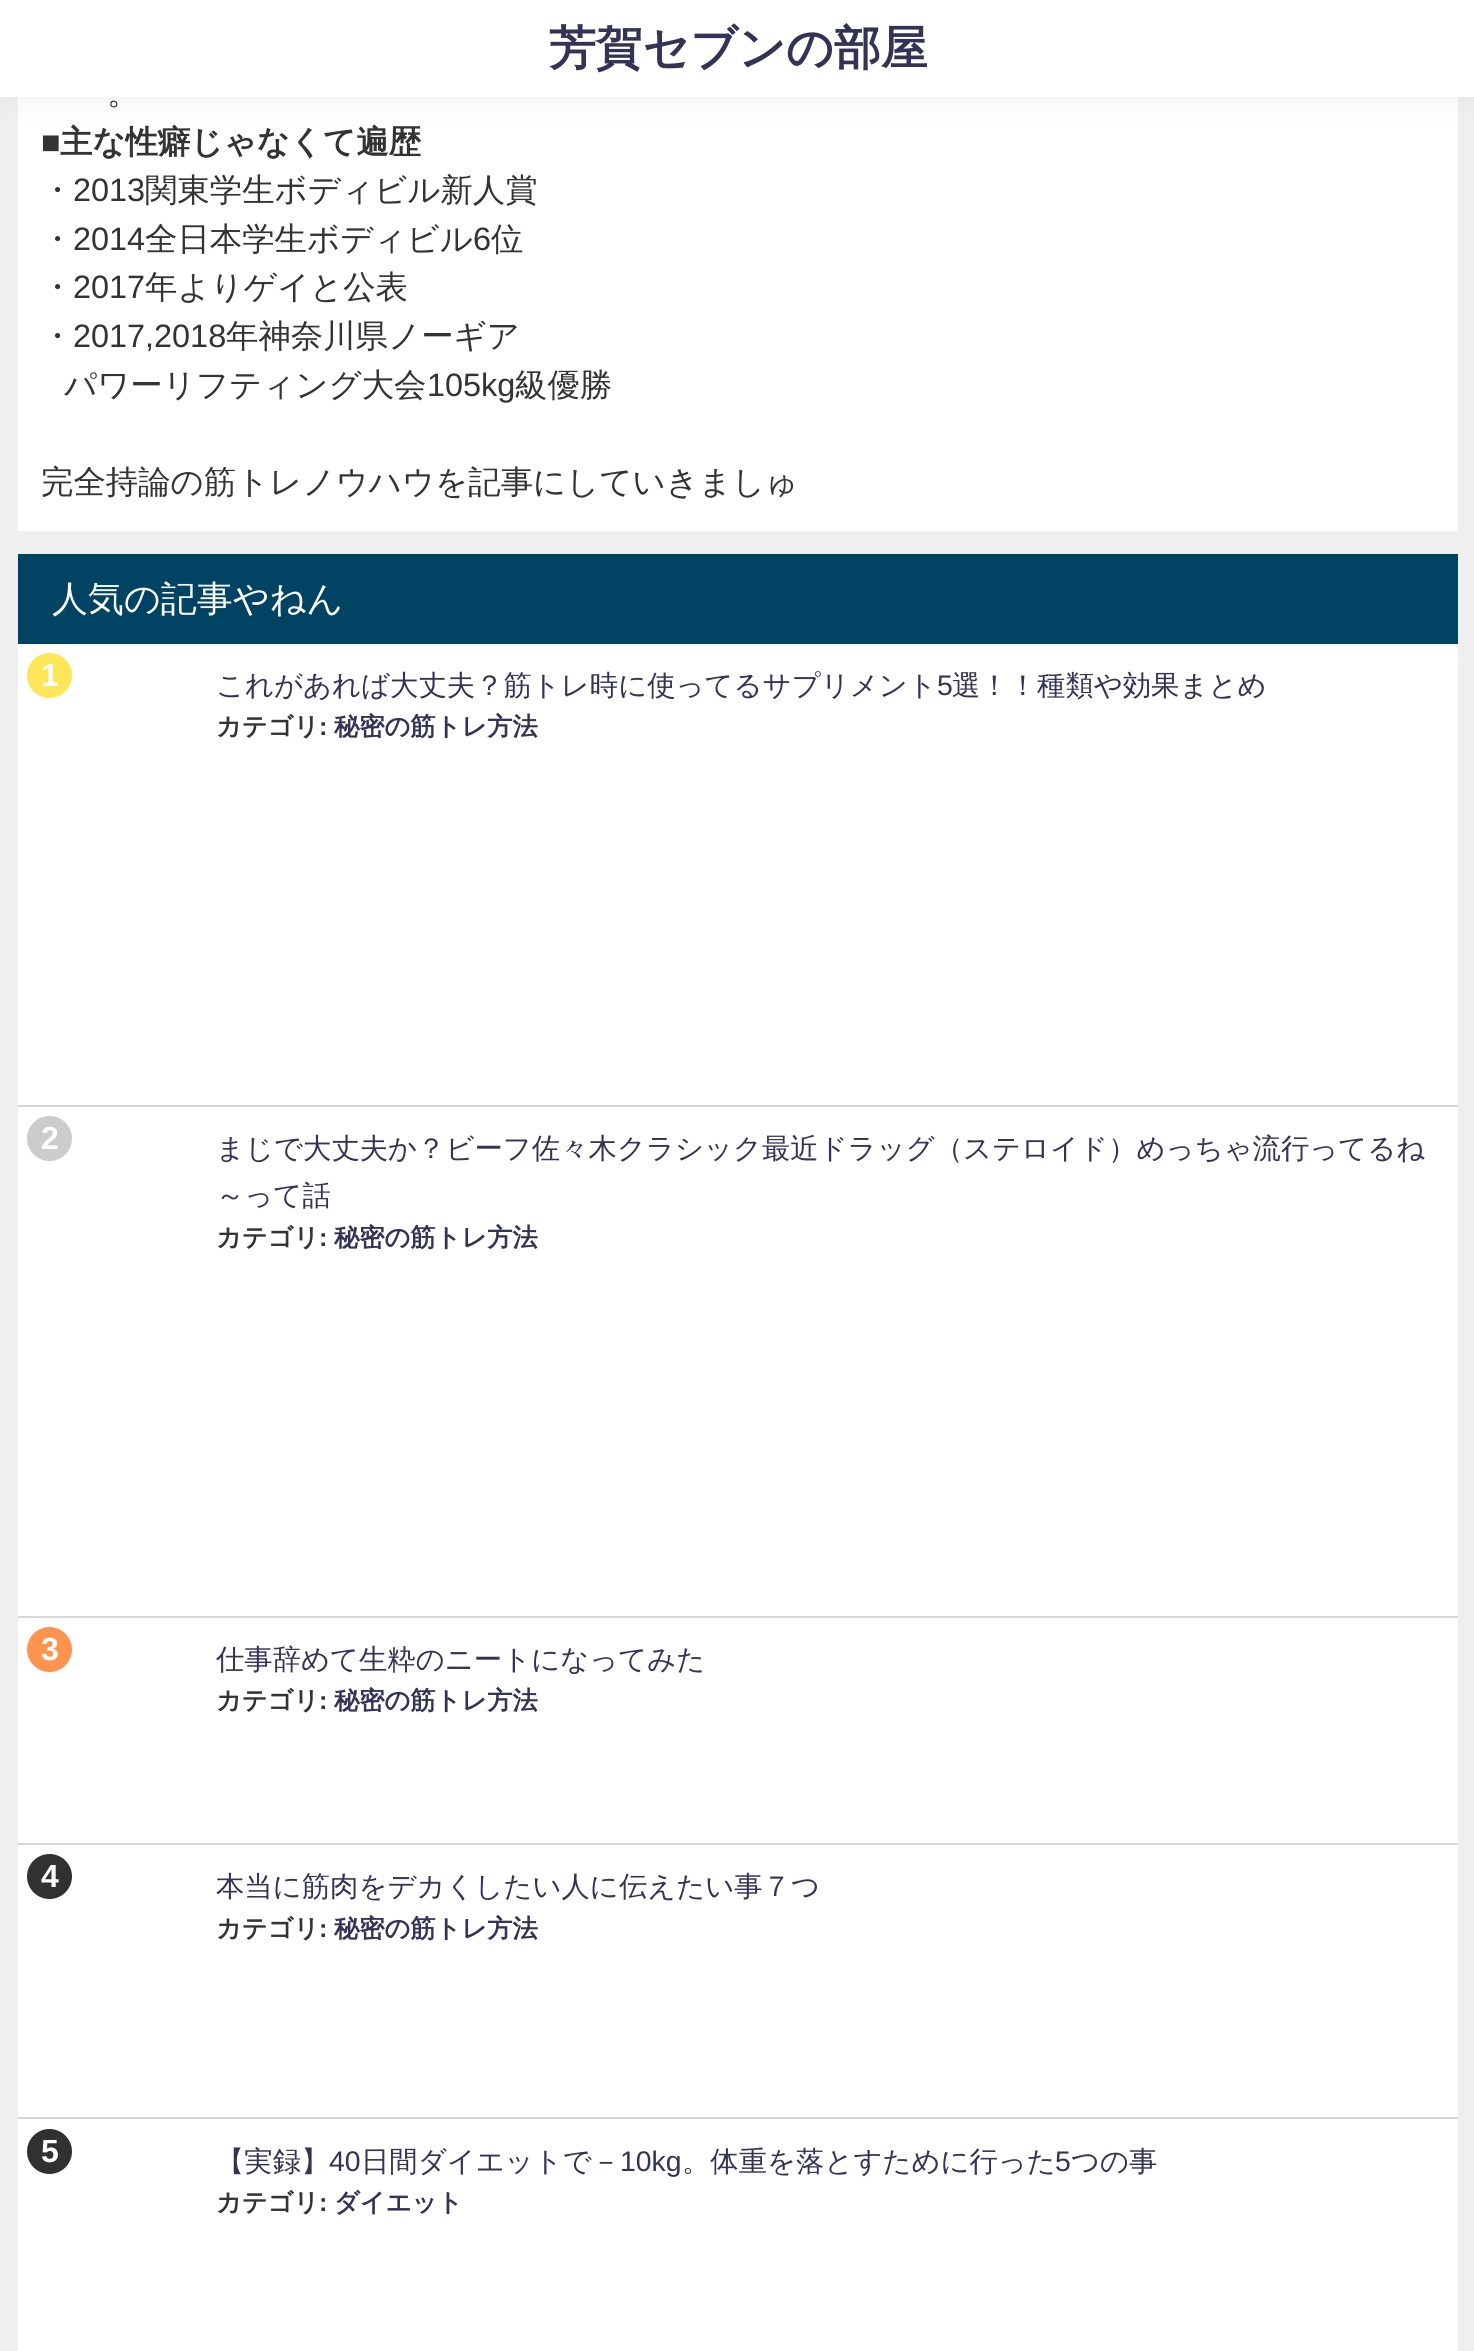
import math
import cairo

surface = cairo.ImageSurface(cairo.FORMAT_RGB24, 1474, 2351)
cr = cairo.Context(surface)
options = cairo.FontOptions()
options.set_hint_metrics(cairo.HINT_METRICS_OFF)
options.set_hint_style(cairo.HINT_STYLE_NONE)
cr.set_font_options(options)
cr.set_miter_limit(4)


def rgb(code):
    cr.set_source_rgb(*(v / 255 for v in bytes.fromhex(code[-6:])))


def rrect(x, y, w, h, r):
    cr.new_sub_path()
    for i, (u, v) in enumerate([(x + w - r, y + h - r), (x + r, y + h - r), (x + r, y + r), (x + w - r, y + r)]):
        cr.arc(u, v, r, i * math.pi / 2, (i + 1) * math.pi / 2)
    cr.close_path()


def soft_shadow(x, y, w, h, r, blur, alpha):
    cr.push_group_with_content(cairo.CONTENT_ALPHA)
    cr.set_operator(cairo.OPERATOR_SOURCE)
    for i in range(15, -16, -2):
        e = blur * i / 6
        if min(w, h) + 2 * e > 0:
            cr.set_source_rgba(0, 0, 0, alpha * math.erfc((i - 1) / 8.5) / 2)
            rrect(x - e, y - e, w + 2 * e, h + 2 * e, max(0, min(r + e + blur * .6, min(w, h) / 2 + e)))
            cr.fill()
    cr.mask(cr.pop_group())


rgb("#efefef")
cr.paint()
rgb("#ffffff")
cr.rectangle(18, 97, 1440, 434)
cr.fill()
rgb("#c8c8c8")
soft_shadow(0, 7, 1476, 97, 0, 11, 0.2)
for x, y, w, h, color in [
    (0, 0, 1474, 97, "#ffffff"),
    (18, 644, 1440, 1707, "#ffffff"),
    (18, 554, 1440, 90, "#004363"),
    (18, 1105, 1440, 2, "#d6d6d6"),
]:
    rgb(color)
    cr.rectangle(x, y, w, h)
    cr.fill()
rgb("#ffe658")
cr.arc(49.5, 675.5, 22.5, 0, 2 * math.pi)
cr.fill()
rgb("#d6d6d6")
cr.rectangle(18, 1616, 1440, 2)
cr.fill()
rgb("#cccccc")
cr.arc(49.5, 1138.5, 22.5, 0, 2 * math.pi)
cr.fill()
rgb("#d6d6d6")
cr.rectangle(18, 1843, 1440, 2)
cr.fill()
rgb("#ff9451")
cr.arc(49.5, 1649.5, 22.5, 0, 2 * math.pi)
cr.fill()
rgb("#d6d6d6")
cr.rectangle(18, 2117, 1440, 2)
cr.fill()
rgb("#313131")
cr.arc(49.5, 1876.5, 22.5, 0, 2 * math.pi)
cr.fill()
cr.arc(49.5, 2151.5, 22.5, 0, 2 * math.pi)
cr.fill()
cr.select_font_face("WenQuanYi Zen Hei", cairo.FONT_SLANT_NORMAL, cairo.FONT_WEIGHT_BOLD)
cr.set_font_size(46.75)
rgb("#333355")
cr.move_to(549, 64)
cr.show_text("芳賀セブンの部屋")
cr.select_font_face("WenQuanYi Zen Hei Medium")
cr.set_font_size(32.4)
rgb("#333333")
cr.move_to(107, 104)
cr.show_text("。")
cr.select_font_face("Liberation Sans", cairo.FONT_SLANT_NORMAL, cairo.FONT_WEIGHT_BOLD)
cr.move_to(41, 153)
cr.show_text("■")
cr.select_font_face("WenQuanYi Zen Hei", cairo.FONT_SLANT_NORMAL, cairo.FONT_WEIGHT_BOLD)
cr.move_to(60, 153)
cr.show_text("主な性癖じゃなくて遍歴")
cr.select_font_face("WenQuanYi Zen Hei Medium")
cr.move_to(41, 201)
cr.show_text("・")
cr.select_font_face("Liberation Sans")
cr.move_to(73, 201)
cr.show_text("2013")
cr.select_font_face("WenQuanYi Zen Hei Medium")
cr.move_to(145, 201)
cr.show_text("関東学生ボディビル新人賞")
cr.move_to(41, 250)
cr.show_text("・")
cr.select_font_face("Liberation Sans")
cr.move_to(73, 250)
cr.show_text("2014")
cr.select_font_face("WenQuanYi Zen Hei Medium")
cr.move_to(145, 250)
cr.show_text("全日本学生ボディビル")
cr.select_font_face("Liberation Sans")
cr.move_to(473, 250)
cr.show_text("6")
cr.select_font_face("WenQuanYi Zen Hei Medium")
cr.move_to(491, 250)
cr.show_text("位")
cr.move_to(41, 298)
cr.show_text("・")
cr.select_font_face("Liberation Sans")
cr.move_to(73, 298)
cr.show_text("2017")
cr.select_font_face("WenQuanYi Zen Hei Medium")
cr.move_to(145, 298)
cr.show_text("年よりゲイと公表")
cr.move_to(41, 347)
cr.show_text("・")
cr.select_font_face("Liberation Sans")
cr.move_to(73, 347)
cr.show_text("2017,2018")
cr.select_font_face("WenQuanYi Zen Hei Medium")
cr.move_to(226, 347)
cr.show_text("年神奈川県ノーギア")
cr.move_to(64, 396)
cr.show_text("パワーリフティング大会")
cr.select_font_face("Liberation Sans")
cr.move_to(427, 396)
cr.show_text("105kg")
cr.select_font_face("WenQuanYi Zen Hei Medium")
cr.move_to(515, 396)
cr.show_text("級優勝")
cr.move_to(41, 493)
cr.show_text("完全持論の筋トレノウハウを記事にしていきましゅ")
cr.set_font_size(36)
rgb("#ffffff")
cr.move_to(52, 611)
cr.show_text("人気の記事やねん")
cr.select_font_face("Liberation Sans", cairo.FONT_SLANT_NORMAL, cairo.FONT_WEIGHT_BOLD)
cr.set_font_size(32)
cr.move_to(41, 686)
cr.show_text("1")
cr.select_font_face("WenQuanYi Zen Hei Medium")
cr.set_font_size(28.35)
rgb("#333355")
cr.move_to(216, 695)
cr.show_text("これがあれば大丈夫？筋トレ時に使ってるサプリメント")
cr.select_font_face("Liberation Sans")
cr.move_to(937, 695)
cr.show_text("5")
cr.select_font_face("WenQuanYi Zen Hei Medium")
cr.move_to(952, 695)
cr.show_text("選！！種類や効果まとめ")
cr.select_font_face("WenQuanYi Zen Hei", cairo.FONT_SLANT_NORMAL, cairo.FONT_WEIGHT_BOLD)
cr.set_font_size(25.25)
rgb("#333333")
cr.move_to(216, 735)
cr.show_text("カテゴリ")
cr.select_font_face("Liberation Sans", cairo.FONT_SLANT_NORMAL, cairo.FONT_WEIGHT_BOLD)
cr.move_to(319, 735)
cr.show_text(":")
cr.select_font_face("WenQuanYi Zen Hei", cairo.FONT_SLANT_NORMAL, cairo.FONT_WEIGHT_BOLD)
rgb("#333355")
cr.move_to(334, 735)
cr.show_text("秘密の筋トレ方法")
cr.select_font_face("Liberation Sans", cairo.FONT_SLANT_NORMAL, cairo.FONT_WEIGHT_BOLD)
cr.set_font_size(32)
rgb("#ffffff")
cr.move_to(41, 1149)
cr.show_text("2")
cr.select_font_face("WenQuanYi Zen Hei Medium")
cr.set_font_size(28.35)
rgb("#333355")
cr.move_to(216, 1158)
cr.show_text("まじで大丈夫か？ビーフ佐々木クラシック最近ドラッグ（ステロイド）めっちゃ流行ってるね")
cr.move_to(216, 1205)
cr.show_text("～って話")
cr.select_font_face("WenQuanYi Zen Hei", cairo.FONT_SLANT_NORMAL, cairo.FONT_WEIGHT_BOLD)
cr.set_font_size(25.25)
rgb("#333333")
cr.move_to(216, 1246)
cr.show_text("カテゴリ")
cr.select_font_face("Liberation Sans", cairo.FONT_SLANT_NORMAL, cairo.FONT_WEIGHT_BOLD)
cr.move_to(319, 1246)
cr.show_text(":")
cr.select_font_face("WenQuanYi Zen Hei", cairo.FONT_SLANT_NORMAL, cairo.FONT_WEIGHT_BOLD)
rgb("#333355")
cr.move_to(334, 1246)
cr.show_text("秘密の筋トレ方法")
cr.select_font_face("Liberation Sans", cairo.FONT_SLANT_NORMAL, cairo.FONT_WEIGHT_BOLD)
cr.set_font_size(32)
rgb("#ffffff")
cr.move_to(41, 1660)
cr.show_text("3")
cr.select_font_face("WenQuanYi Zen Hei Medium")
cr.set_font_size(28.35)
rgb("#333355")
cr.move_to(216, 1669)
cr.show_text("仕事辞めて生粋のニートになってみた")
cr.select_font_face("WenQuanYi Zen Hei", cairo.FONT_SLANT_NORMAL, cairo.FONT_WEIGHT_BOLD)
cr.set_font_size(25.25)
rgb("#333333")
cr.move_to(216, 1709)
cr.show_text("カテゴリ")
cr.select_font_face("Liberation Sans", cairo.FONT_SLANT_NORMAL, cairo.FONT_WEIGHT_BOLD)
cr.move_to(319, 1709)
cr.show_text(":")
cr.select_font_face("WenQuanYi Zen Hei", cairo.FONT_SLANT_NORMAL, cairo.FONT_WEIGHT_BOLD)
rgb("#333355")
cr.move_to(334, 1709)
cr.show_text("秘密の筋トレ方法")
cr.select_font_face("Liberation Sans", cairo.FONT_SLANT_NORMAL, cairo.FONT_WEIGHT_BOLD)
cr.set_font_size(32)
rgb("#ffffff")
cr.move_to(41, 1887)
cr.show_text("4")
cr.select_font_face("WenQuanYi Zen Hei Medium")
cr.set_font_size(28.35)
rgb("#333355")
cr.move_to(216, 1896)
cr.show_text("本当に筋肉をデカくしたい人に伝えたい事７つ")
cr.select_font_face("WenQuanYi Zen Hei", cairo.FONT_SLANT_NORMAL, cairo.FONT_WEIGHT_BOLD)
cr.set_font_size(25.25)
rgb("#333333")
cr.move_to(216, 1937)
cr.show_text("カテゴリ")
cr.select_font_face("Liberation Sans", cairo.FONT_SLANT_NORMAL, cairo.FONT_WEIGHT_BOLD)
cr.move_to(319, 1937)
cr.show_text(":")
cr.select_font_face("WenQuanYi Zen Hei", cairo.FONT_SLANT_NORMAL, cairo.FONT_WEIGHT_BOLD)
rgb("#333355")
cr.move_to(334, 1937)
cr.show_text("秘密の筋トレ方法")
cr.select_font_face("Liberation Sans", cairo.FONT_SLANT_NORMAL, cairo.FONT_WEIGHT_BOLD)
cr.set_font_size(32)
rgb("#ffffff")
cr.move_to(41, 2162)
cr.show_text("5")
cr.select_font_face("WenQuanYi Zen Hei Medium")
cr.set_font_size(28.35)
rgb("#333355")
cr.move_to(216, 2171)
cr.show_text("【実録】")
cr.select_font_face("Liberation Sans")
cr.move_to(329, 2171)
cr.show_text("40")
cr.select_font_face("WenQuanYi Zen Hei Medium")
cr.move_to(361, 2171)
cr.show_text("日間ダイエットで－")
cr.select_font_face("Liberation Sans")
cr.move_to(620, 2171)
cr.show_text("10kg")
cr.select_font_face("WenQuanYi Zen Hei Medium")
cr.move_to(682, 2171)
cr.show_text("。体重を落とすために行った")
cr.select_font_face("Liberation Sans")
cr.move_to(1055, 2171)
cr.show_text("5")
cr.select_font_face("WenQuanYi Zen Hei Medium")
cr.move_to(1071, 2171)
cr.show_text("つの事")
cr.select_font_face("WenQuanYi Zen Hei", cairo.FONT_SLANT_NORMAL, cairo.FONT_WEIGHT_BOLD)
cr.set_font_size(25.25)
rgb("#333333")
cr.move_to(216, 2211)
cr.show_text("カテゴリ")
cr.select_font_face("Liberation Sans", cairo.FONT_SLANT_NORMAL, cairo.FONT_WEIGHT_BOLD)
cr.move_to(319, 2211)
cr.show_text(":")
cr.select_font_face("WenQuanYi Zen Hei", cairo.FONT_SLANT_NORMAL, cairo.FONT_WEIGHT_BOLD)
rgb("#333355")
cr.move_to(334, 2211)
cr.show_text("ダイエット")
surface.write_to_png("page.png")
